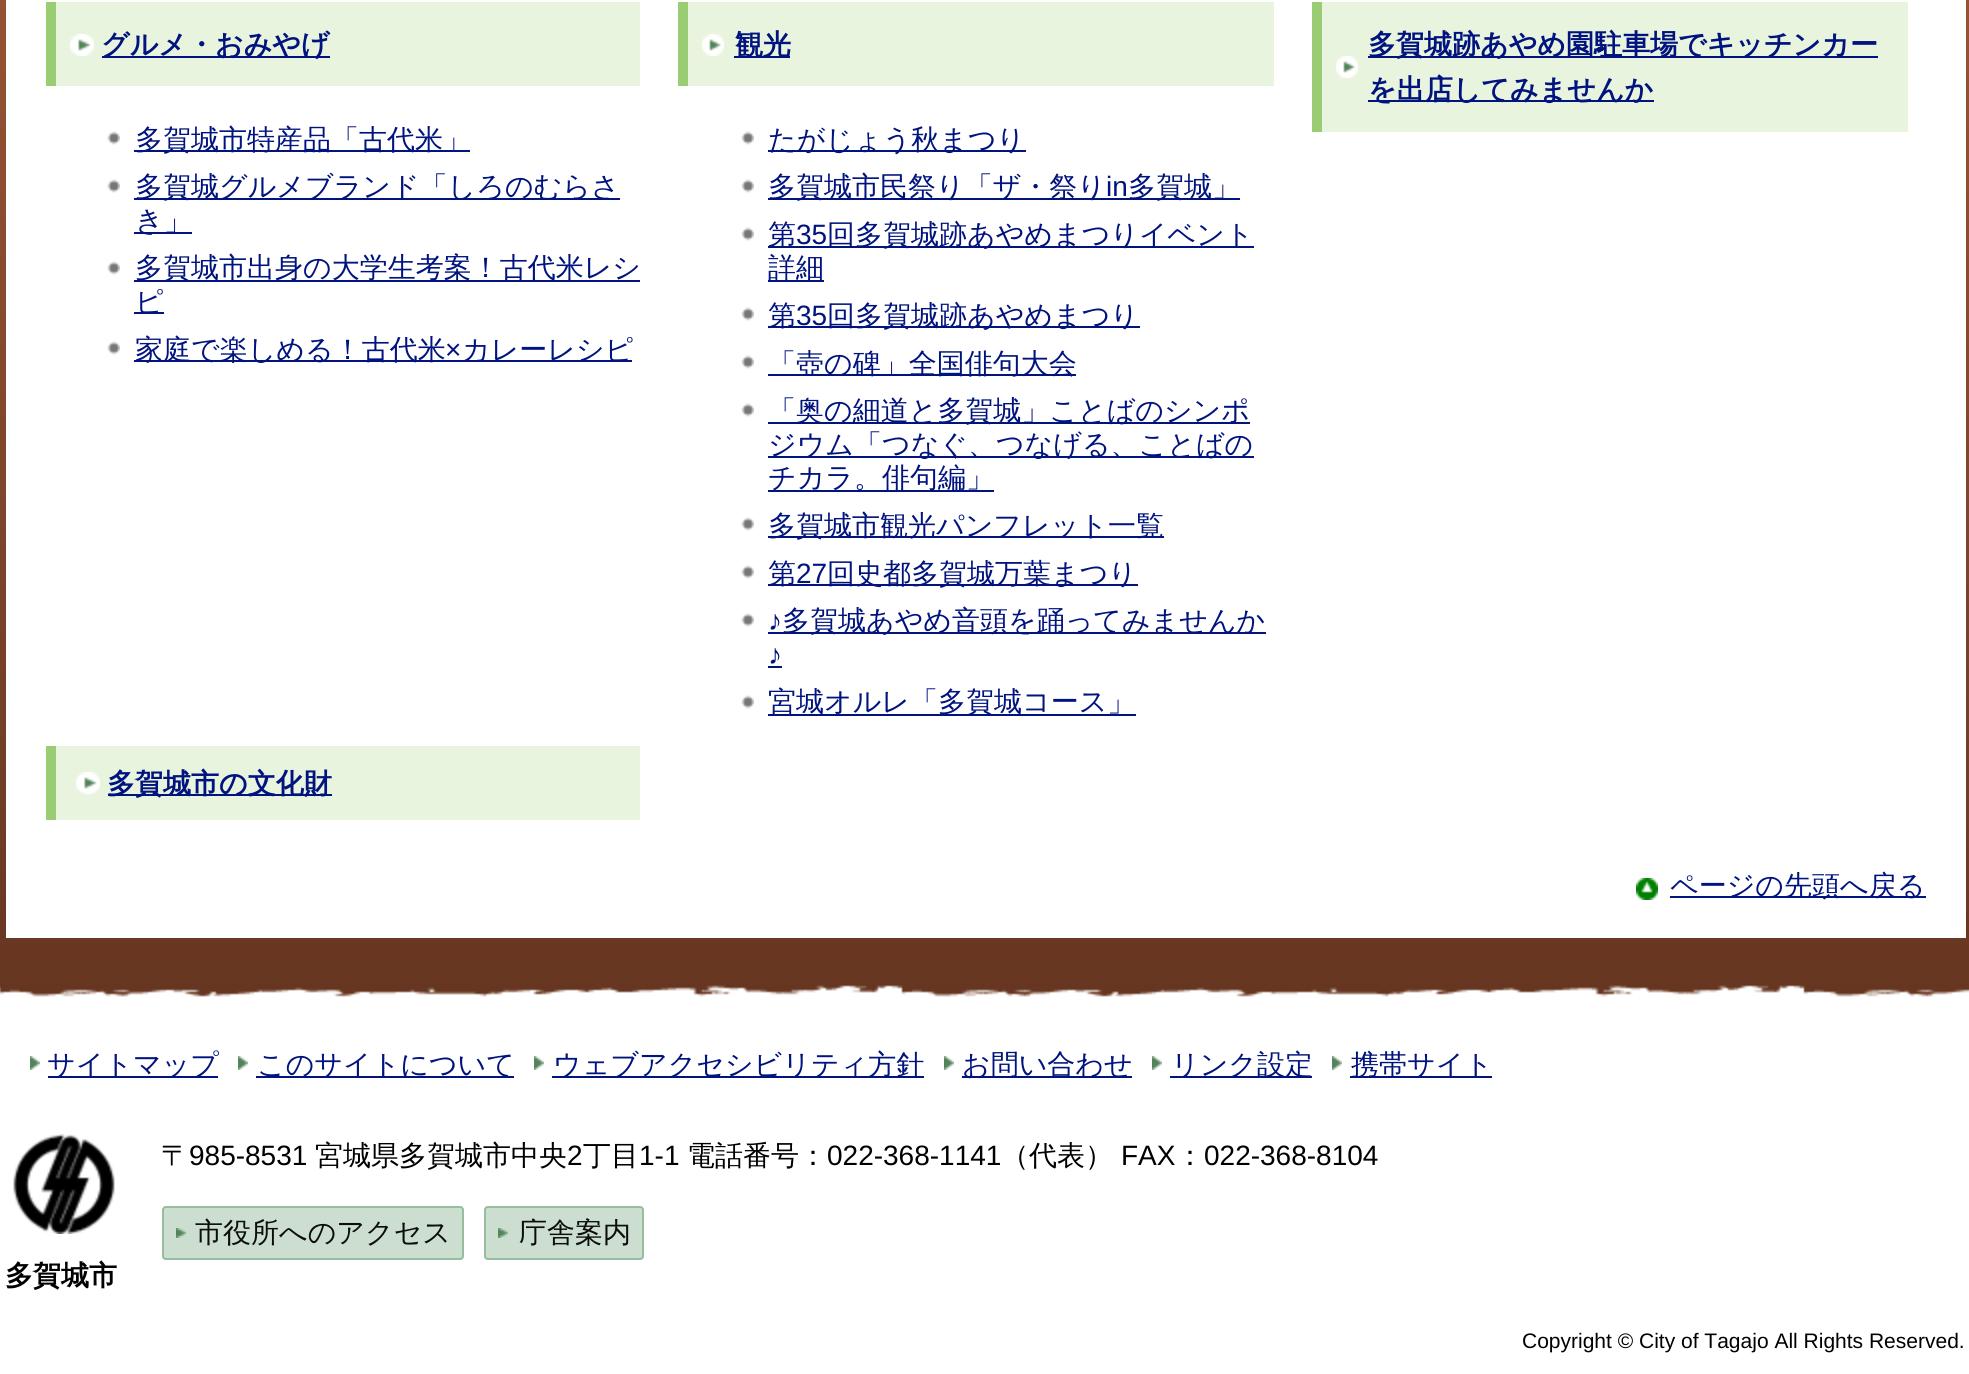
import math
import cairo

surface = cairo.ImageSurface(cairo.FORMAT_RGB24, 1969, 1374)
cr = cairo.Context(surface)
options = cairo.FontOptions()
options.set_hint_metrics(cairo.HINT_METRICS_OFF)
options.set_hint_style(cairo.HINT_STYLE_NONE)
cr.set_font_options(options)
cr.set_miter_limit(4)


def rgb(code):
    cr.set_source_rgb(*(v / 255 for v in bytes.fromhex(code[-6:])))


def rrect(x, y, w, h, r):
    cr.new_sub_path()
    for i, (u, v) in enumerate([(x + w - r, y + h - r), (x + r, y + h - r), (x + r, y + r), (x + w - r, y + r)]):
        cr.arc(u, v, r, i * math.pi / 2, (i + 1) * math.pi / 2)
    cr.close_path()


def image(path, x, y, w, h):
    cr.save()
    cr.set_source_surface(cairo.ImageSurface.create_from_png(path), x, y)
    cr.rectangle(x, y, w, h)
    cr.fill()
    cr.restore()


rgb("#ffffff")
cr.paint()
image("img/1.png", 0, 0, 1969, 997)
for x, y, w, h, color in [
    (6, 0, 1960, 938, "#ffffff"),
    (56, 2, 584, 84, "#e9f4df"),
    (46, 2, 10, 84, "#99cc73"),
]:
    rgb(color)
    cr.rectangle(x, y, w, h)
    cr.fill()
image("img/2.png", 70, 34, 24, 22)
rgb("#00137e")
cr.rectangle(102, 56, 228, 2)
cr.fill()
image("img/3.png", 107, 131, 13, 14)
cr.rectangle(134, 150, 336, 2)
cr.fill()
image("img/3.png", 107, 179, 13, 14)
cr.rectangle(134, 198, 486, 2)
cr.fill()
cr.rectangle(134, 232, 58, 2)
cr.fill()
image("img/3.png", 107, 261, 13, 14)
cr.rectangle(134, 280, 506, 2)
cr.fill()
cr.rectangle(134, 312, 30, 2)
cr.fill()
image("img/3.png", 107, 341, 13, 14)
for x, y, w, h, color in [
    (134, 360, 498, 2, "#00137e"),
    (688, 2, 586, 84, "#e9f4df"),
    (678, 2, 10, 84, "#99cc73"),
]:
    rgb(color)
    cr.rectangle(x, y, w, h)
    cr.fill()
image("img/4.png", 702, 34, 22, 22)
rgb("#00137e")
cr.rectangle(734, 56, 56, 2)
cr.fill()
image("img/3.png", 741, 131, 13, 14)
cr.rectangle(768, 150, 258, 2)
cr.fill()
image("img/3.png", 741, 179, 13, 14)
cr.rectangle(768, 198, 472, 2)
cr.fill()
image("img/3.png", 741, 227, 13, 14)
cr.rectangle(768, 246, 486, 2)
cr.fill()
cr.rectangle(768, 280, 56, 2)
cr.fill()
image("img/3.png", 741, 307, 13, 14)
cr.rectangle(768, 326, 372, 2)
cr.fill()
image("img/3.png", 741, 355, 13, 14)
cr.rectangle(768, 374, 308, 2)
cr.fill()
image("img/3.png", 741, 403, 13, 14)
for x, y, w, h, color in [
    (768, 422, 482, 2, "#00137e"),
    (768, 456, 486, 2, "#00137e"),
    (768, 490, 226, 2, "#00137e"),
]:
    rgb(color)
    cr.rectangle(x, y, w, h)
    cr.fill()
image("img/3.png", 741, 517, 13, 14)
cr.rectangle(768, 536, 396, 2)
cr.fill()
image("img/3.png", 741, 565, 13, 14)
cr.rectangle(768, 584, 370, 2)
cr.fill()
image("img/3.png", 741, 613, 13, 14)
cr.rectangle(768, 632, 498, 2)
cr.fill()
cr.rectangle(768, 666, 14, 2)
cr.fill()
image("img/3.png", 741, 695, 13, 14)
for x, y, w, h, color in [
    (768, 714, 368, 2, "#00137e"),
    (1322, 2, 586, 130, "#e9f4df"),
    (1312, 2, 10, 130, "#99cc73"),
]:
    rgb(color)
    cr.rectangle(x, y, w, h)
    cr.fill()
image("img/4.png", 1336, 56, 22, 22)
for x, y, w, h, color in [
    (1368, 56, 510, 2, "#00137e"),
    (1368, 100, 286, 2, "#00137e"),
    (56, 746, 584, 74, "#e9f4df"),
    (46, 746, 10, 74, "#99cc73"),
]:
    rgb(color)
    cr.rectangle(x, y, w, h)
    cr.fill()
image("img/2.png", 76, 772, 24, 22)
rgb("#00137e")
cr.rectangle(108, 794, 224, 2)
cr.fill()
image("img/5.png", 1636, 878, 22, 22)
cr.rectangle(1670, 896, 256, 2)
cr.fill()
image("img/6.png", 0, 985, 1969, 15)
image("img/7.png", 30, 1056, 10, 14)
cr.rectangle(48, 1076, 170, 2)
cr.fill()
image("img/7.png", 238, 1056, 10, 14)
cr.rectangle(256, 1076, 258, 2)
cr.fill()
image("img/7.png", 534, 1056, 10, 14)
cr.rectangle(552, 1076, 372, 2)
cr.fill()
image("img/7.png", 944, 1056, 10, 14)
cr.rectangle(962, 1076, 170, 2)
cr.fill()
image("img/7.png", 1152, 1056, 10, 14)
cr.rectangle(1170, 1076, 142, 2)
cr.fill()
image("img/7.png", 1332, 1056, 10, 14)
cr.rectangle(1350, 1076, 142, 2)
cr.fill()
rgb("#cbdecf")
rrect(162, 1206, 302, 54, 4)
cr.fill()
image("img/8.png", 176, 1228, 10, 10)
rrect(163, 1207, 300, 52, 3)
rgb("#96be9d")
cr.stroke()
rgb("#cbdecf")
rrect(484, 1206, 160, 54, 4)
cr.fill()
image("img/8.png", 498, 1228, 10, 10)
rrect(485, 1207, 158, 52, 3)
rgb("#96be9d")
cr.stroke()
image("img/9.png", 13, 1134, 102, 100)
cr.select_font_face("WenQuanYi Zen Hei", cairo.FONT_SLANT_NORMAL, cairo.FONT_WEIGHT_BOLD)
cr.set_font_size(28)
rgb("#00137e")
cr.move_to(101, 54)
cr.show_text("グルメ・おみやげ")
cr.select_font_face("WenQuanYi Zen Hei Medium")
for x, y, s in [
    (135, 149, "多賀城市特産品「古代米」"),
    (135, 196, "多賀城グルメブランド「しろのむらさ"),
    (135, 230, "き」"),
    (135, 277, "多賀城市出身の大学生考案！古代米レシ"),
    (135, 311, "ピ"),
    (135, 359, "家庭で楽しめる！古代米"),
]:
    cr.move_to(x, y)
    cr.show_text(s)
cr.select_font_face("Liberation Sans")
cr.move_to(445, 359)
cr.show_text("×")
cr.select_font_face("WenQuanYi Zen Hei Medium")
cr.move_to(462, 359)
cr.show_text("カレーレシピ")
cr.select_font_face("WenQuanYi Zen Hei", cairo.FONT_SLANT_NORMAL, cairo.FONT_WEIGHT_BOLD)
cr.move_to(735, 54)
cr.show_text("観光")
cr.select_font_face("WenQuanYi Zen Hei Medium")
cr.move_to(768, 149)
cr.show_text("たがじょう秋まつり")
cr.move_to(768, 196)
cr.show_text("多賀城市民祭り「ザ・祭り")
cr.select_font_face("Liberation Sans")
cr.move_to(1106, 196)
cr.show_text("in")
cr.select_font_face("WenQuanYi Zen Hei Medium")
cr.move_to(1128, 196)
cr.show_text("多賀城」")
cr.move_to(768, 244)
cr.show_text("第")
cr.select_font_face("Liberation Sans")
cr.move_to(796, 244)
cr.show_text("35")
cr.select_font_face("WenQuanYi Zen Hei Medium")
for x, y, s in [
    (827, 244, "回多賀城跡あやめまつりイベント"),
    (768, 277, "詳細"),
    (768, 325, "第"),
]:
    cr.move_to(x, y)
    cr.show_text(s)
cr.select_font_face("Liberation Sans")
cr.move_to(796, 325)
cr.show_text("35")
cr.select_font_face("WenQuanYi Zen Hei Medium")
for x, y, s in [
    (827, 325, "回多賀城跡あやめまつり"),
    (768, 373, "「壺の碑」全国俳句大会"),
    (768, 420, "「奥の細道と多賀城」ことばのシンポ"),
    (768, 454, "ジウム「つなぐ、つなげる、ことばの"),
    (768, 487, "チカラ。俳句編」"),
    (768, 535, "多賀城市観光パンフレット一覧"),
    (768, 583, "第"),
]:
    cr.move_to(x, y)
    cr.show_text(s)
cr.select_font_face("Liberation Sans")
cr.move_to(796, 583)
cr.show_text("27")
cr.select_font_face("WenQuanYi Zen Hei Medium")
cr.move_to(827, 583)
cr.show_text("回史都多賀城万葉まつり")
cr.select_font_face("Liberation Sans")
cr.move_to(768, 630)
cr.show_text("♪")
cr.select_font_face("WenQuanYi Zen Hei Medium")
cr.move_to(782, 630)
cr.show_text("多賀城あやめ音頭を踊ってみませんか")
cr.select_font_face("Liberation Sans")
cr.move_to(768, 664)
cr.show_text("♪")
cr.select_font_face("WenQuanYi Zen Hei Medium")
cr.move_to(768, 711)
cr.show_text("宮城オルレ「多賀城コース」")
cr.select_font_face("WenQuanYi Zen Hei", cairo.FONT_SLANT_NORMAL, cairo.FONT_WEIGHT_BOLD)
for x, y, s in [
    (1368, 54, "多賀城跡あやめ園駐車場でキッチンカー"),
    (1368, 99, "を出店してみませんか"),
    (107, 793, "多賀城市の文化財"),
]:
    cr.move_to(x, y)
    cr.show_text(s)
cr.select_font_face("WenQuanYi Zen Hei Medium")
for x, y, s in [
    (1670, 895, "ページの先頭へ戻る"),
    (47, 1074, "サイトマップ"),
    (257, 1074, "このサイトについて"),
    (553, 1074, "ウェブアクセシビリティ方針"),
    (962, 1074, "お問い合わせ"),
    (1171, 1074, "リンク設定"),
    (1351, 1074, "携帯サイト"),
]:
    cr.move_to(x, y)
    cr.show_text(s)
rgb("#000000")
cr.move_to(161, 1165)
cr.show_text("〒")
cr.select_font_face("Liberation Sans")
cr.move_to(189, 1165)
cr.show_text("985-8531")
cr.select_font_face("WenQuanYi Zen Hei Medium")
cr.move_to(315, 1165)
cr.show_text("宮城県多賀城市中央")
cr.select_font_face("Liberation Sans")
cr.move_to(567, 1165)
cr.show_text("2")
cr.select_font_face("WenQuanYi Zen Hei Medium")
cr.move_to(583, 1165)
cr.show_text("丁目")
cr.select_font_face("Liberation Sans")
cr.move_to(639, 1165)
cr.show_text("1-1")
cr.select_font_face("WenQuanYi Zen Hei Medium")
cr.move_to(687, 1165)
cr.show_text("電話番号：")
cr.select_font_face("Liberation Sans")
cr.move_to(827, 1165)
cr.show_text("022-368-1141")
cr.select_font_face("WenQuanYi Zen Hei Medium")
cr.move_to(1001, 1165)
cr.show_text("（代表）")
cr.select_font_face("Liberation Sans")
cr.move_to(1121, 1165)
cr.show_text("FAX")
cr.select_font_face("WenQuanYi Zen Hei Medium")
cr.move_to(1176, 1165)
cr.show_text("：")
cr.select_font_face("Liberation Sans")
cr.move_to(1204, 1165)
cr.show_text("022-368-8104")
cr.select_font_face("WenQuanYi Zen Hei Medium")
rgb("#0c0d0c")
cr.move_to(195, 1242)
cr.show_text("市役所へのアクセス")
cr.move_to(519, 1242)
cr.show_text("庁舎案内")
cr.select_font_face("WenQuanYi Zen Hei", cairo.FONT_SLANT_NORMAL, cairo.FONT_WEIGHT_BOLD)
rgb("#000000")
cr.move_to(5, 1285)
cr.show_text("多賀城市")
cr.select_font_face("Liberation Sans")
cr.set_font_size(21)
cr.move_to(1522, 1348)
cr.show_text("Copyright © City of Tagajo All Rights Reserved.")
surface.write_to_png("page.png")
